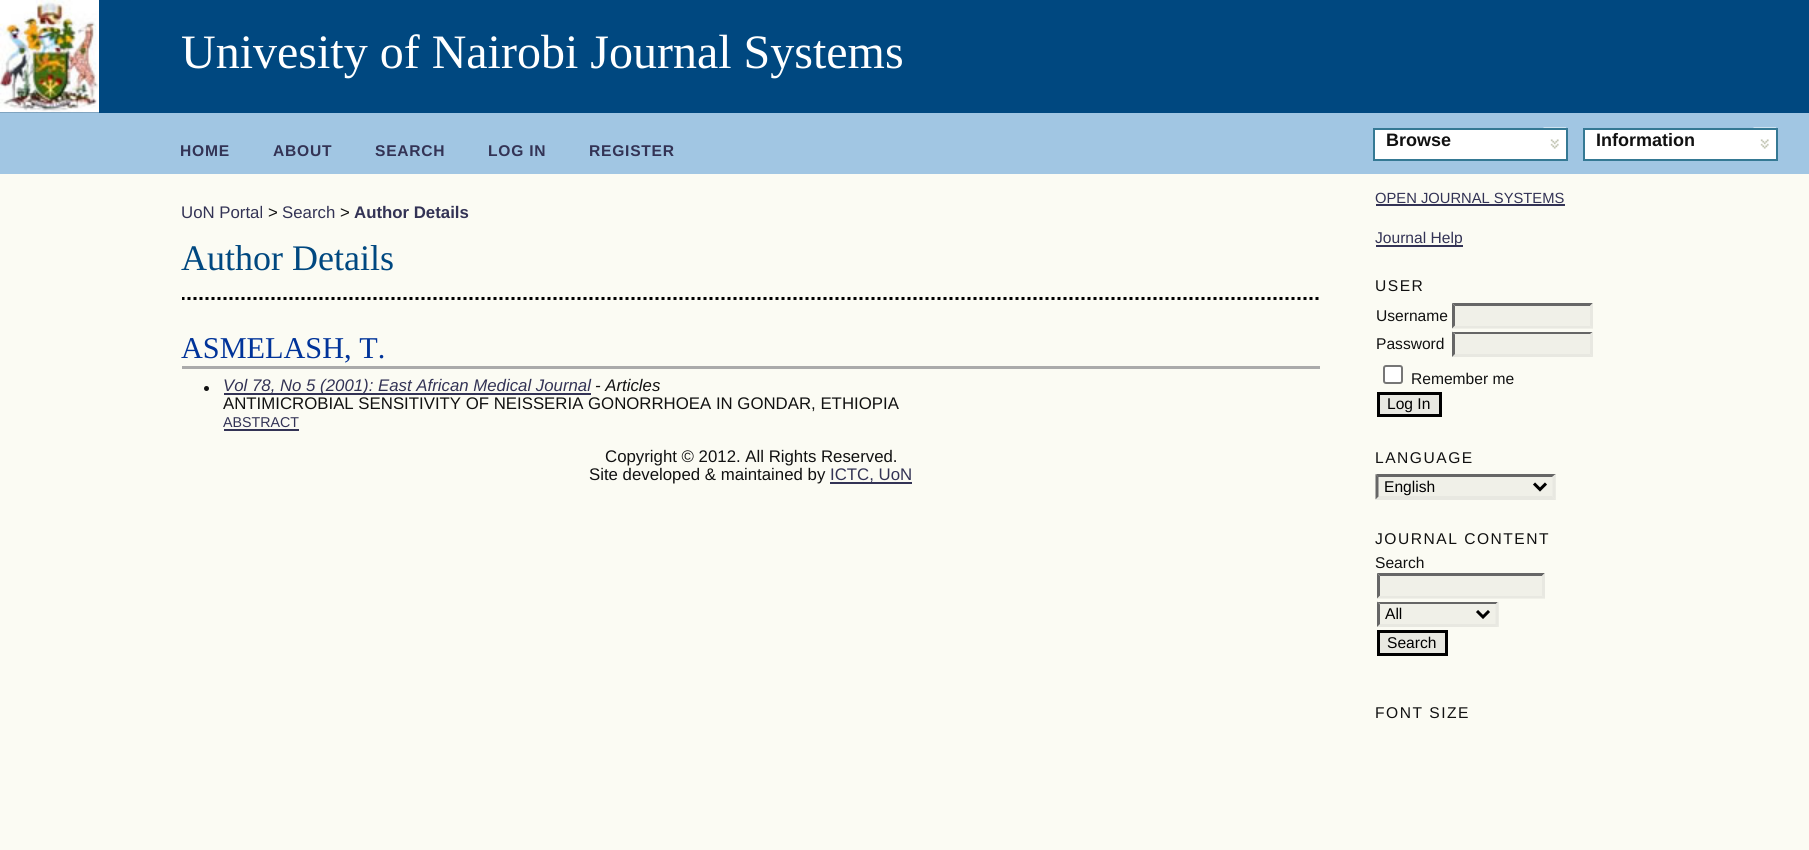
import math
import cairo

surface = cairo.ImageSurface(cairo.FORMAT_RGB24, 1809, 850)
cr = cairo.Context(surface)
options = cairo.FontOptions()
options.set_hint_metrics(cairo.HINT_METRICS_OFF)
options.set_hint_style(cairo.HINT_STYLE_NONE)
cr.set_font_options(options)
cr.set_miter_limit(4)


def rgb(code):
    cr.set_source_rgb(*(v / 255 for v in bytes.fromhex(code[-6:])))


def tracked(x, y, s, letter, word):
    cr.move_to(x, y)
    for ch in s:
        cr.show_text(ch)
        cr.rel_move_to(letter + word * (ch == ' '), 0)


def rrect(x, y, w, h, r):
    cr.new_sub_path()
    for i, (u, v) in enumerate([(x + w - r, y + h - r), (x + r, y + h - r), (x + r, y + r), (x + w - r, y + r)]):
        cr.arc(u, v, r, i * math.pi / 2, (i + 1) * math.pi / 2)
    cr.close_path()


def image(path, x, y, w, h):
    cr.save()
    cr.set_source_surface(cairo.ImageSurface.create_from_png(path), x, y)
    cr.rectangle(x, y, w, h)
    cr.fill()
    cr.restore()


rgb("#fbfbf3")
cr.paint()
rgb("#004880")
cr.rectangle(0, 0, 1809, 113)
cr.fill()
image("img/1.png", 0, 0, 99, 113)
rgb("#a1c6e3")
cr.rectangle(0, 113, 1809, 61)
cr.fill()
rgb("#ffffff")
cr.rectangle(1375, 130, 191, 29)
cr.fill()
image("img/2.png", 1543, 127, 23, 22)
cr.rectangle(1374, 129, 193, 31)
rgb("#357994")
cr.stroke()
rgb("#ffffff")
cr.rectangle(1585, 130, 191, 29)
cr.fill()
image("img/2.png", 1753, 127, 23, 22)
cr.rectangle(1584, 129, 193, 31)
rgb("#357994")
cr.stroke()
cr.save()
cr.rectangle(182, 174, 1138, 374)
cr.clip()
cr.new_path()
cr.move_to(181.5, 298.5)
cr.line_to(1320, 298.5)
rgb("#000000")
cr.set_line_width(3)
cr.set_dash([3, 3])
cr.stroke()
cr.restore()
rgb("#aaaaaa")
cr.rectangle(182, 366, 1138, 3)
cr.fill()
rgb("#111111")
cr.arc(206.5, 388.5, 2.5, 0, 2 * math.pi)
cr.fill()
for x, y, w, h, color in [
    (224, 393, 367, 2, "#333355"),
    (224, 429, 75, 2, "#333355"),
    (830, 482, 82, 2, "#333355"),
    (1376, 204, 189, 2, "#333355"),
    (1376, 245, 87, 2, "#333355"),
    (1452, 303, 141, 26, "#f0f0e8"),
]:
    rgb(color)
    cr.rectangle(x, y, w, h)
    cr.fill()
rgb("#666666")
cr.new_path()
cr.move_to(1452, 303)
cr.line_to(1593, 303)
cr.line_to(1590, 306)
cr.line_to(1455, 306)
cr.close_path()
cr.fill()
rgb("#e8e8e1")
cr.new_path()
cr.move_to(1593, 303)
cr.line_to(1593, 328.5)
cr.line_to(1590, 325.5)
cr.line_to(1590, 306)
cr.close_path()
cr.fill()
cr.new_path()
cr.move_to(1593, 328)
cr.line_to(1452, 328)
cr.line_to(1455, 326)
cr.line_to(1590, 326)
cr.close_path()
cr.fill()
rgb("#666666")
cr.new_path()
cr.move_to(1452, 328.5)
cr.line_to(1452, 303)
cr.line_to(1455, 306)
cr.line_to(1455, 325.5)
cr.close_path()
cr.fill()
rgb("#f0f0e8")
cr.rectangle(1452, 332, 141, 25)
cr.fill()
rgb("#666666")
cr.new_path()
cr.move_to(1452, 332)
cr.line_to(1593, 332)
cr.line_to(1590, 334)
cr.line_to(1455, 334)
cr.close_path()
cr.fill()
rgb("#e8e8e1")
cr.new_path()
cr.move_to(1593, 331.5)
cr.line_to(1593, 357)
cr.line_to(1590, 354)
cr.line_to(1590, 334.5)
cr.close_path()
cr.fill()
cr.new_path()
cr.move_to(1593, 357)
cr.line_to(1452, 357)
cr.line_to(1455, 354)
cr.line_to(1590, 354)
cr.close_path()
cr.fill()
rgb("#666666")
cr.new_path()
cr.move_to(1452, 357)
cr.line_to(1452, 331.5)
cr.line_to(1455, 334.5)
cr.line_to(1455, 354)
cr.close_path()
cr.fill()
rgb("#ffffff")
rrect(1384, 366, 18, 17, 2)
cr.fill_preserve()
rgb("#767676")
cr.stroke()
rgb("#e8e8e1")
cr.rectangle(1378.5, 393.5, 62, 22)
cr.fill_preserve()
rgb("#000000")
cr.set_line_width(3)
cr.stroke()
rgb("#f0f0e8")
cr.rectangle(1376, 474, 180, 26)
cr.fill()
rgb("#666666")
cr.new_path()
cr.move_to(1376, 474)
cr.line_to(1556, 474)
cr.line_to(1552, 477)
cr.line_to(1378, 477)
cr.close_path()
cr.fill()
rgb("#e8e8e1")
cr.new_path()
cr.move_to(1555.5, 474)
cr.line_to(1555.5, 499.5)
cr.line_to(1552.5, 496.5)
cr.line_to(1552.5, 477)
cr.close_path()
cr.fill()
cr.new_path()
cr.move_to(1556, 500)
cr.line_to(1376, 500)
cr.line_to(1378, 496)
cr.line_to(1552, 496)
cr.close_path()
cr.fill()
rgb("#666666")
cr.new_path()
cr.move_to(1375.5, 499.5)
cr.line_to(1375.5, 474)
cr.line_to(1378.5, 477)
cr.line_to(1378.5, 496.5)
cr.close_path()
cr.fill()
cr.new_path()
cr.move_to(1534, 483.5)
cr.line_to(1540, 489.5)
cr.line_to(1546, 483.5)
rgb("#000000")
cr.stroke()
rgb("#f0f0e8")
cr.rectangle(1377, 573, 168, 26)
cr.fill()
rgb("#666666")
cr.new_path()
cr.move_to(1377, 573)
cr.line_to(1545, 573)
cr.line_to(1542, 576)
cr.line_to(1380, 576)
cr.close_path()
cr.fill()
rgb("#e8e8e1")
cr.new_path()
cr.move_to(1545, 573)
cr.line_to(1545, 598.5)
cr.line_to(1542, 595.5)
cr.line_to(1542, 576)
cr.close_path()
cr.fill()
cr.new_path()
cr.move_to(1545, 598)
cr.line_to(1377, 598)
cr.line_to(1380, 596)
cr.line_to(1542, 596)
cr.close_path()
cr.fill()
rgb("#666666")
cr.new_path()
cr.move_to(1377, 598.5)
cr.line_to(1377, 573)
cr.line_to(1380, 576)
cr.line_to(1380, 595.5)
cr.close_path()
cr.fill()
rgb("#f0f0e8")
cr.rectangle(1377, 602, 122, 25)
cr.fill()
rgb("#666666")
cr.new_path()
cr.move_to(1377, 602)
cr.line_to(1498, 602)
cr.line_to(1496, 604)
cr.line_to(1380, 604)
cr.close_path()
cr.fill()
rgb("#e8e8e1")
cr.new_path()
cr.move_to(1498.5, 601.5)
cr.line_to(1498.5, 627)
cr.line_to(1495.5, 624)
cr.line_to(1495.5, 604.5)
cr.close_path()
cr.fill()
cr.new_path()
cr.move_to(1498, 627)
cr.line_to(1377, 627)
cr.line_to(1380, 624)
cr.line_to(1496, 624)
cr.close_path()
cr.fill()
rgb("#666666")
cr.new_path()
cr.move_to(1377, 627)
cr.line_to(1377, 601.5)
cr.line_to(1380, 604.5)
cr.line_to(1380, 624)
cr.close_path()
cr.fill()
cr.new_path()
cr.move_to(1477, 611)
cr.line_to(1483, 617)
cr.line_to(1489, 611)
rgb("#000000")
cr.stroke()
rgb("#e8e8e1")
cr.rectangle(1378.5, 631.5, 68, 23)
cr.fill_preserve()
rgb("#000000")
cr.stroke()
cr.select_font_face("Liberation Serif")
cr.set_font_size(48)
rgb("#ffffff")
cr.move_to(181, 68)
cr.show_text("Univesity of Nairobi Journal Systems")
cr.select_font_face("Liberation Sans", cairo.FONT_SLANT_NORMAL, cairo.FONT_WEIGHT_BOLD)
cr.set_font_size(18)
rgb("#111111")
cr.move_to(1386, 146)
cr.show_text("Browse")
cr.move_to(1596, 146)
cr.show_text("Information")
cr.set_font_size(15.6)
rgb("#333355")
for x, y, s in [
    (180, 156, "HOME"),
    (273, 156, "ABOUT"),
    (375, 156, "SEARCH"),
    (488, 156, "LOG IN"),
    (589, 156, "REGISTER"),
]:
    tracked(x, y, s, 0.75, 0)
cr.select_font_face("Liberation Sans")
cr.set_font_size(16.8)
cr.move_to(181, 218)
cr.show_text("UoN Portal")
rgb("#111111")
cr.move_to(268, 218)
cr.show_text(">")
rgb("#333355")
cr.move_to(282, 218)
cr.show_text("Search")
rgb("#111111")
cr.move_to(340, 218)
cr.show_text(">")
cr.select_font_face("Liberation Sans", cairo.FONT_SLANT_NORMAL, cairo.FONT_WEIGHT_BOLD)
rgb("#333355")
cr.move_to(354, 218)
cr.show_text("Author Details")
cr.select_font_face("Liberation Serif")
cr.set_font_size(36)
rgb("#004880")
cr.move_to(181, 270)
cr.show_text("Author Details")
cr.set_font_size(30.25)
rgb("#003399")
cr.move_to(181, 358)
cr.show_text("ASMELASH, T.")
cr.select_font_face("Liberation Sans", cairo.FONT_SLANT_ITALIC)
cr.set_font_size(16.8)
rgb("#333355")
cr.move_to(223, 391)
cr.show_text("Vol 78, No 5 (2001): East African Medical Journal")
rgb("#111111")
cr.move_to(595, 391)
cr.show_text("- Articles")
cr.select_font_face("Liberation Sans")
cr.move_to(223, 409)
cr.show_text("ANTIMICROBIAL SENSITIVITY OF NEISSERIA GONORRHOEA IN GONDAR, ETHIOPIA")
cr.set_font_size(14.25)
rgb("#333355")
cr.move_to(223, 427)
cr.show_text("ABSTRACT")
cr.set_font_size(16.8)
rgb("#111111")
cr.move_to(605, 462)
cr.show_text("Copyright © 2012. All Rights Reserved.")
cr.move_to(589, 480)
cr.show_text("Site developed & maintained by")
rgb("#333355")
cr.move_to(830, 480)
cr.show_text("ICTC, UoN")
cr.set_font_size(14.75)
cr.move_to(1375, 203)
cr.show_text("OPEN JOURNAL SYSTEMS")
cr.set_font_size(15.6)
cr.move_to(1375, 243)
cr.show_text("Journal Help")
rgb("#111111")
tracked(1375, 291, "USER", 1.5, 0)
for x, y, s in [
    (1376, 321, "Username"),
    (1376, 349, "Password"),
    (1411, 384, "Remember me"),
]:
    cr.move_to(x, y)
    cr.show_text(s)
rgb("#000000")
cr.move_to(1387, 409)
cr.show_text("Log In")
rgb("#111111")
tracked(1375, 463, "LANGUAGE", 1.5, 0)
rgb("#000000")
cr.move_to(1384, 492)
cr.show_text("English")
rgb("#111111")
tracked(1375, 544, "JOURNAL CONTENT", 1.5, 0)
cr.move_to(1375, 568)
cr.show_text("Search")
rgb("#000000")
cr.move_to(1385, 619)
cr.show_text("All")
cr.move_to(1387, 648)
cr.show_text("Search")
rgb("#111111")
tracked(1375, 718, "FONT SIZE", 1.5, 0)
surface.write_to_png("page.png")
